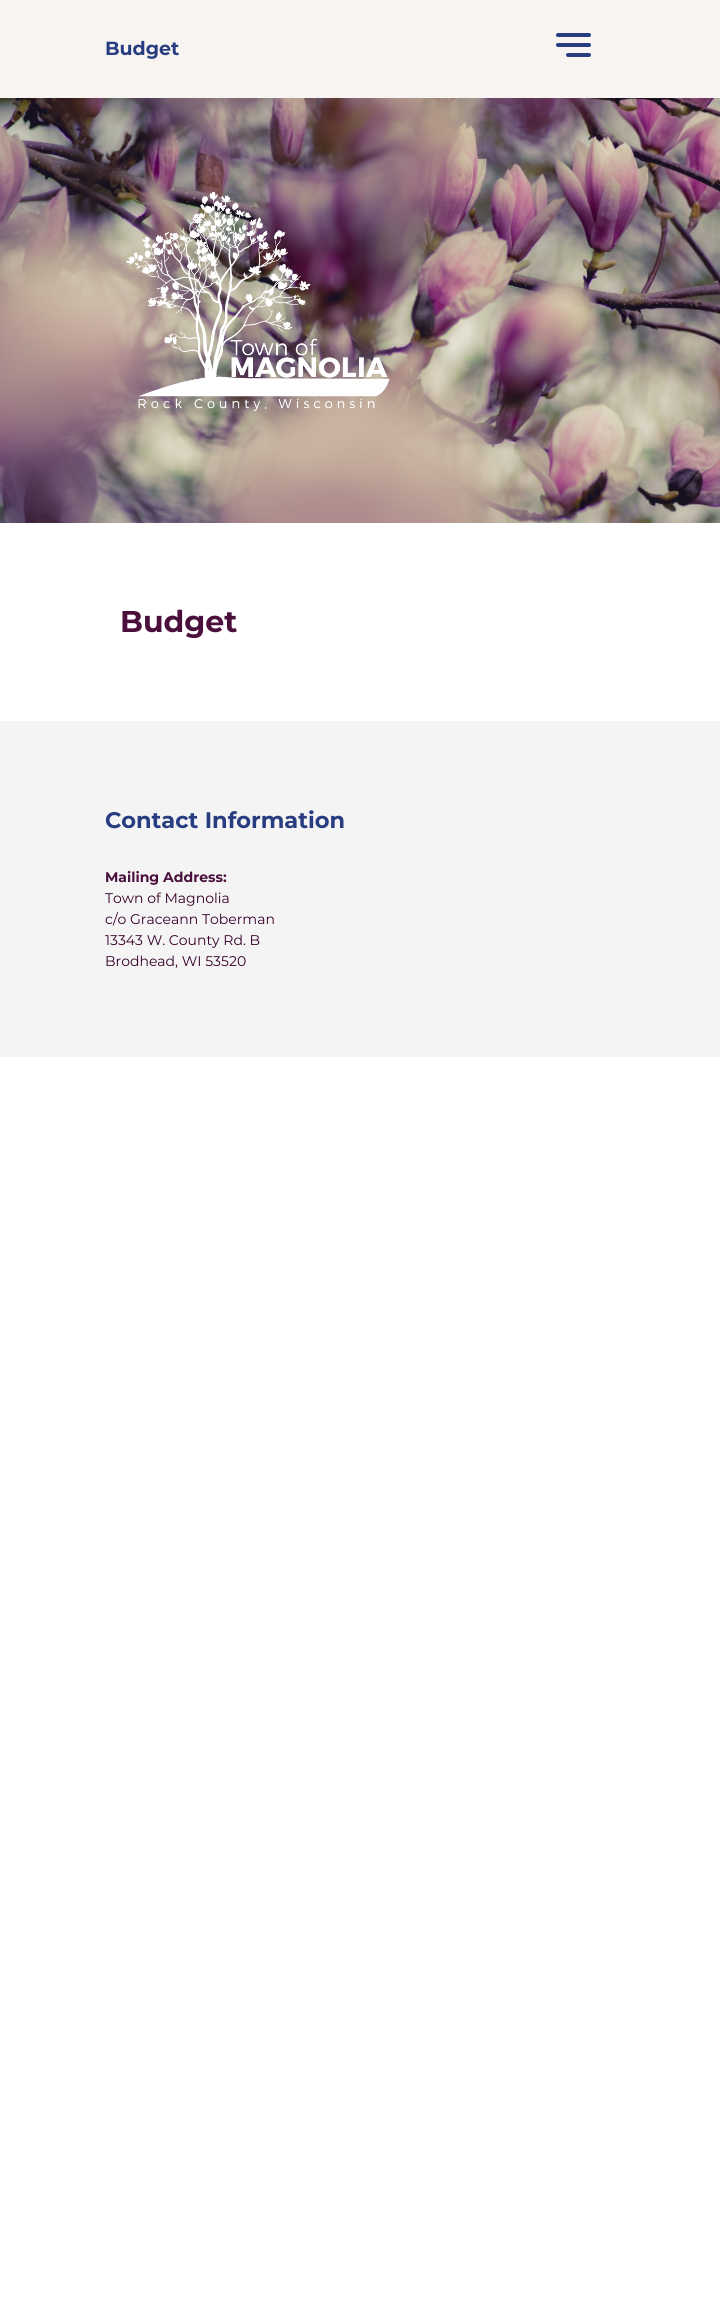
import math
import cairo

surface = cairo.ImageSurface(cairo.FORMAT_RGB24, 720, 2303)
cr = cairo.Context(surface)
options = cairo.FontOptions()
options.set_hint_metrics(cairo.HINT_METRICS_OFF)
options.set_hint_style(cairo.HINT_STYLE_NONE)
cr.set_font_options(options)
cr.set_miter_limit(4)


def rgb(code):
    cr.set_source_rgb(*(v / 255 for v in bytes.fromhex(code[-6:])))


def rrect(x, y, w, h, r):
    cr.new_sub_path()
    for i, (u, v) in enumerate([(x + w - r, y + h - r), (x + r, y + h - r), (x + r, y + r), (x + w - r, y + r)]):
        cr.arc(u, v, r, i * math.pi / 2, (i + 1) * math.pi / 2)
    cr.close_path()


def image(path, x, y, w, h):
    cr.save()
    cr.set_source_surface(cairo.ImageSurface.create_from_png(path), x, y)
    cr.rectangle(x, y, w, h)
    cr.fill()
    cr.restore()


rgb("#ffffff")
cr.paint()
rgb("#f7f4f2")
cr.rectangle(0, 0, 720, 98)
cr.fill()
rgb("#283d81")
rrect(556, 33, 35, 4, 2)
cr.fill()
rrect(556, 43, 35, 4, 2)
cr.fill()
rrect(566, 53, 25, 4, 2)
cr.fill()
image("img/1.png", 0, 98, 720, 425)
image("img/2.png", 126, 191, 264, 220)
rgb("#f4f4f4")
cr.rectangle(0, 721, 720, 336)
cr.fill()
cr.select_font_face("Montserrat", cairo.FONT_SLANT_NORMAL, cairo.FONT_WEIGHT_BOLD)
cr.set_font_size(19)
rgb("#283d81")
cr.move_to(105, 55)
cr.show_text("Budget")
cr.set_font_size(30)
rgb("#4a0f3b")
cr.move_to(120, 632)
cr.show_text("Budget")
cr.set_font_size(22.5)
rgb("#283d81")
cr.move_to(105, 828)
cr.show_text("Contact Information")
cr.set_font_size(14)
rgb("#4a0f3b")
cr.move_to(105, 882)
cr.show_text("Mailing Address:")
cr.select_font_face("Montserrat")
rgb("#38002a")
for x, y, s in [
    (105, 903, "Town of Magnolia"),
    (105, 924, "c/o Graceann Toberman"),
    (105, 945, "13343 W. County Rd. B"),
    (105, 966, "Brodhead, WI 53520"),
]:
    cr.move_to(x, y)
    cr.show_text(s)
surface.write_to_png("page.png")
